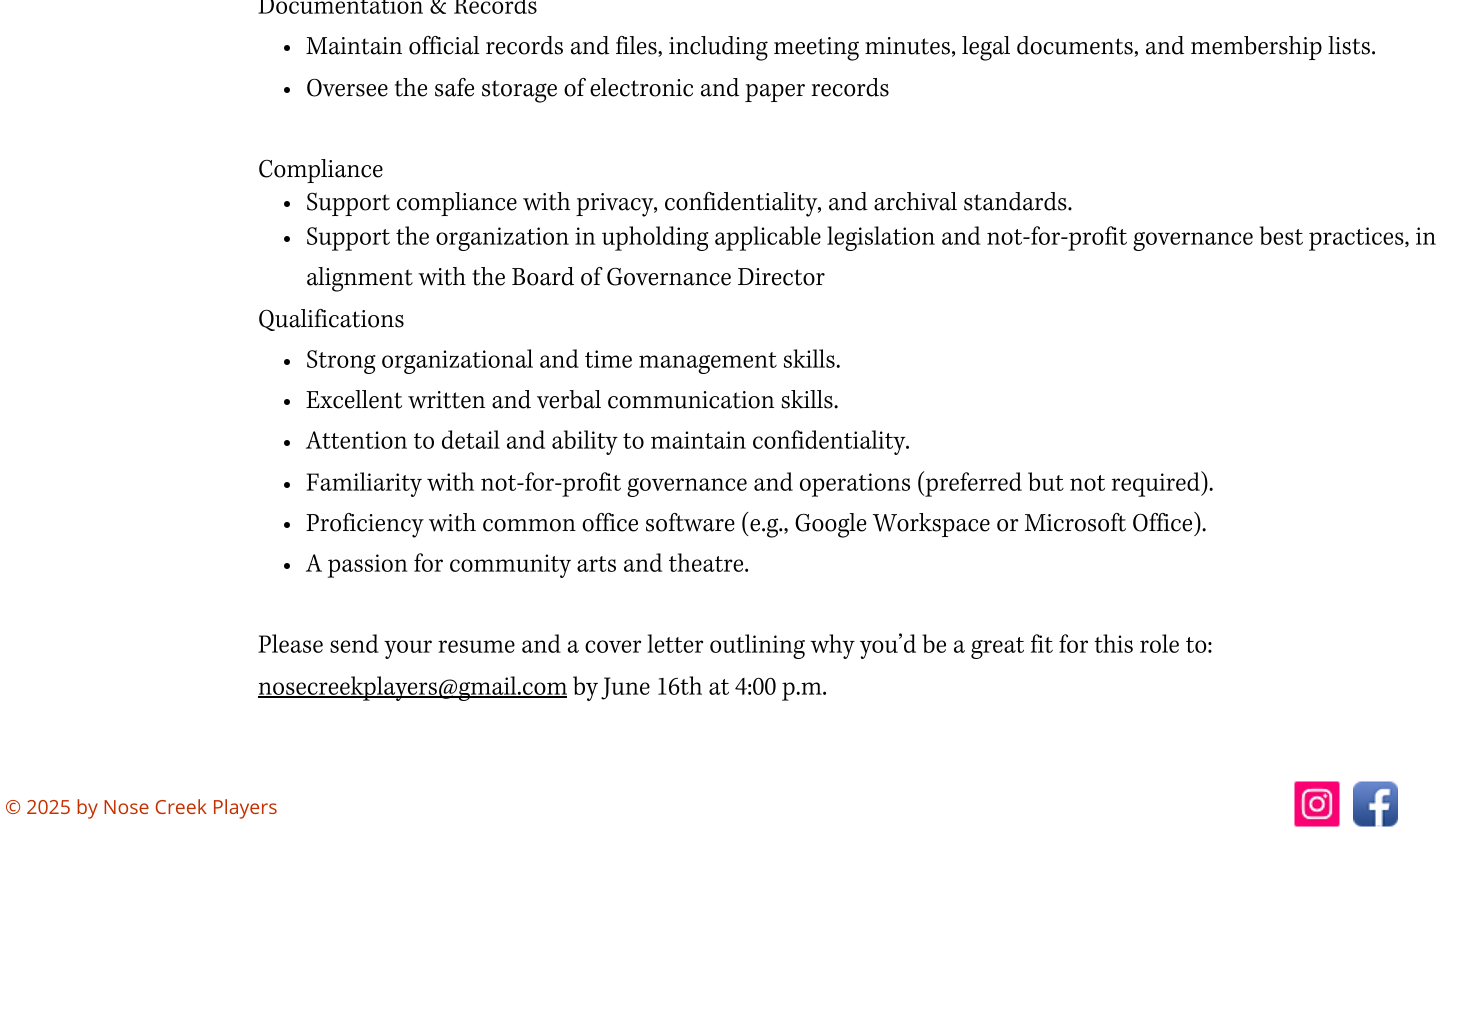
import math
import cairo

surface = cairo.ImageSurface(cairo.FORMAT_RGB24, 1478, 1033)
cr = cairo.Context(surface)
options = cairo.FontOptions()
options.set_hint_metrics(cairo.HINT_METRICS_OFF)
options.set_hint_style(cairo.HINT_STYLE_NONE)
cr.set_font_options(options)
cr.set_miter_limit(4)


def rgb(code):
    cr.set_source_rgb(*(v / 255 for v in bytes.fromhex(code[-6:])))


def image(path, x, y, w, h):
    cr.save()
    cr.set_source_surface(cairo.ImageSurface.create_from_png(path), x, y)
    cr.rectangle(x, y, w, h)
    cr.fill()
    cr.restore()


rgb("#ffffff")
cr.paint()
image("img/1.png", 258, 0, 279, 14)
rgb("#000000")
cr.arc(287, 48, 3, 0, 2 * math.pi)
cr.fill()
image("img/2.png", 306, 35, 1069, 26)
cr.arc(287, 90, 3, 0, 2 * math.pi)
cr.fill()
image("img/3.png", 307, 77, 582, 26)
image("img/4.png", 259, 158, 124, 26)
cr.arc(287, 204, 3, 0, 2 * math.pi)
cr.fill()
image("img/5.png", 307, 191, 765, 26)
cr.arc(287, 239, 3, 0, 2 * math.pi)
cr.fill()
image("img/6.png", 307, 226, 1129, 25)
image("img/7.png", 307, 266, 518, 26)
image("img/8.png", 259, 308, 145, 23)
cr.arc(287, 362, 3, 0, 2 * math.pi)
cr.fill()
image("img/9.png", 307, 349, 533, 25)
cr.arc(287, 402, 3, 0, 2 * math.pi)
cr.fill()
image("img/10.png", 306, 389, 532, 20)
cr.arc(287, 443, 3, 0, 2 * math.pi)
cr.fill()
image("img/11.png", 305, 430, 604, 25)
cr.arc(287, 485, 3, 0, 2 * math.pi)
cr.fill()
image("img/12.png", 306, 471, 907, 26)
cr.arc(287, 525, 3, 0, 2 * math.pi)
cr.fill()
image("img/13.png", 306, 511, 900, 27)
cr.arc(287, 566, 3, 0, 2 * math.pi)
cr.fill()
image("img/14.png", 305, 553, 444, 25)
image("img/15.png", 258, 633, 954, 26)
cr.rectangle(258, 696, 309, 2)
cr.fill()
image("img/16.png", 258, 676, 309, 25)
image("img/17.png", 573, 676, 254, 25)
image("img/18.png", 1294, 781, 46, 46)
image("img/19.png", 1353, 781, 45, 46)
cr.select_font_face("Open Sans")
cr.set_font_size(19.5)
rgb("#c43100")
cr.move_to(5, 814)
cr.show_text("© 2025 by Nose Creek Players")
surface.write_to_png("page.png")
